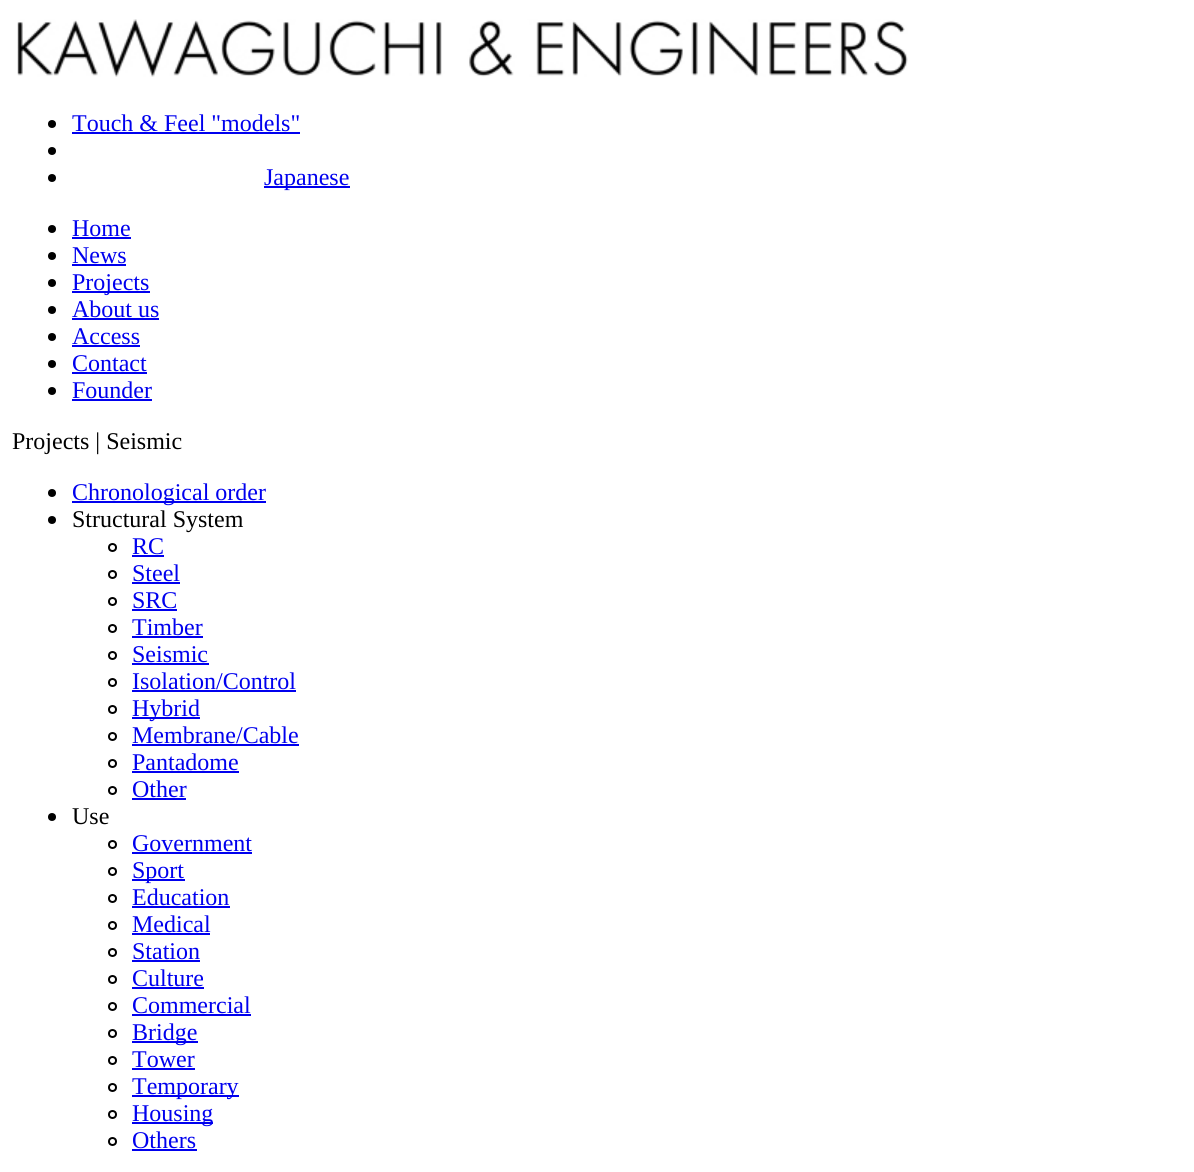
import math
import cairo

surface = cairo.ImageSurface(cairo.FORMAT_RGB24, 1194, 1172)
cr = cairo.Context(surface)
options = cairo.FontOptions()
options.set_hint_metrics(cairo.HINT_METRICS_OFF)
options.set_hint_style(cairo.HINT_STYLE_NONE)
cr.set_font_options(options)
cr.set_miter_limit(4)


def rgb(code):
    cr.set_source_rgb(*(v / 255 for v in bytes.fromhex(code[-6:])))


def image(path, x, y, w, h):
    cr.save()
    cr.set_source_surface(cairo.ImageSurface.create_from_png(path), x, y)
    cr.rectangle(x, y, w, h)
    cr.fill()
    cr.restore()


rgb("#ffffff")
cr.paint()
image("img/1.png", 17, 19, 891, 58)
rgb("#000000")
cr.arc(52, 124, 4, 0, 2 * math.pi)
cr.fill()
rgb("#0000ee")
cr.rectangle(72, 132, 228, 2)
cr.fill()
rgb("#000000")
cr.arc(52, 151, 4, 0, 2 * math.pi)
cr.fill()
cr.arc(52, 178, 4, 0, 2 * math.pi)
cr.fill()
rgb("#0000ee")
cr.rectangle(264, 186, 86, 2)
cr.fill()
rgb("#000000")
cr.arc(52, 229, 4, 0, 2 * math.pi)
cr.fill()
rgb("#0000ee")
cr.rectangle(72, 237, 59, 2)
cr.fill()
rgb("#000000")
cr.arc(52, 256, 4, 0, 2 * math.pi)
cr.fill()
rgb("#0000ee")
cr.rectangle(72, 264, 54, 2)
cr.fill()
rgb("#000000")
cr.arc(52, 283, 4, 0, 2 * math.pi)
cr.fill()
rgb("#0000ee")
cr.rectangle(72, 291, 78, 2)
cr.fill()
rgb("#000000")
cr.arc(52, 310, 4, 0, 2 * math.pi)
cr.fill()
rgb("#0000ee")
cr.rectangle(72, 318, 87, 2)
cr.fill()
rgb("#000000")
cr.arc(52, 337, 4, 0, 2 * math.pi)
cr.fill()
rgb("#0000ee")
cr.rectangle(72, 345, 68, 2)
cr.fill()
rgb("#000000")
cr.arc(52, 364, 4, 0, 2 * math.pi)
cr.fill()
rgb("#0000ee")
cr.rectangle(72, 372, 75, 2)
cr.fill()
rgb("#000000")
cr.arc(52, 391, 4, 0, 2 * math.pi)
cr.fill()
rgb("#0000ee")
cr.rectangle(72, 399, 80, 2)
cr.fill()
rgb("#000000")
cr.arc(52, 493, 4, 0, 2 * math.pi)
cr.fill()
rgb("#0000ee")
cr.rectangle(72, 501, 194, 2)
cr.fill()
rgb("#000000")
cr.arc(52, 520, 4, 0, 2 * math.pi)
cr.fill()
cr.arc(112.5, 547.5, 3.5, 0, 2 * math.pi)
cr.stroke()
rgb("#0000ee")
cr.rectangle(132, 555, 32, 2)
cr.fill()
cr.arc(112.5, 574.5, 3.5, 0, 2 * math.pi)
rgb("#000000")
cr.stroke()
rgb("#0000ee")
cr.rectangle(132, 582, 48, 2)
cr.fill()
cr.arc(112.5, 601.5, 3.5, 0, 2 * math.pi)
rgb("#000000")
cr.stroke()
rgb("#0000ee")
cr.rectangle(132, 609, 45, 2)
cr.fill()
cr.arc(112.5, 628.5, 3.5, 0, 2 * math.pi)
rgb("#000000")
cr.stroke()
rgb("#0000ee")
cr.rectangle(132, 636, 71, 2)
cr.fill()
cr.arc(112.5, 655.5, 3.5, 0, 2 * math.pi)
rgb("#000000")
cr.stroke()
rgb("#0000ee")
cr.rectangle(132, 663, 77, 2)
cr.fill()
cr.arc(112.5, 682.5, 3.5, 0, 2 * math.pi)
rgb("#000000")
cr.stroke()
rgb("#0000ee")
cr.rectangle(132, 690, 164, 2)
cr.fill()
cr.arc(112.5, 709.5, 3.5, 0, 2 * math.pi)
rgb("#000000")
cr.stroke()
rgb("#0000ee")
cr.rectangle(132, 717, 68, 2)
cr.fill()
cr.arc(112.5, 736.5, 3.5, 0, 2 * math.pi)
rgb("#000000")
cr.stroke()
rgb("#0000ee")
cr.rectangle(132, 744, 167, 2)
cr.fill()
cr.arc(112.5, 763.5, 3.5, 0, 2 * math.pi)
rgb("#000000")
cr.stroke()
rgb("#0000ee")
cr.rectangle(132, 771, 107, 2)
cr.fill()
cr.arc(112.5, 790.5, 3.5, 0, 2 * math.pi)
rgb("#000000")
cr.stroke()
rgb("#0000ee")
cr.rectangle(132, 798, 54, 2)
cr.fill()
rgb("#000000")
cr.arc(52, 817, 4, 0, 2 * math.pi)
cr.fill()
cr.arc(112.5, 844.5, 3.5, 0, 2 * math.pi)
cr.stroke()
rgb("#0000ee")
cr.rectangle(132, 852, 120, 2)
cr.fill()
cr.arc(112.5, 871.5, 3.5, 0, 2 * math.pi)
rgb("#000000")
cr.stroke()
rgb("#0000ee")
cr.rectangle(132, 879, 53, 2)
cr.fill()
cr.arc(112.5, 898.5, 3.5, 0, 2 * math.pi)
rgb("#000000")
cr.stroke()
rgb("#0000ee")
cr.rectangle(132, 906, 98, 2)
cr.fill()
cr.arc(112.5, 925.5, 3.5, 0, 2 * math.pi)
rgb("#000000")
cr.stroke()
rgb("#0000ee")
cr.rectangle(132, 933, 78, 2)
cr.fill()
cr.arc(112.5, 952.5, 3.5, 0, 2 * math.pi)
rgb("#000000")
cr.stroke()
rgb("#0000ee")
cr.rectangle(132, 960, 68, 2)
cr.fill()
cr.arc(112.5, 979.5, 3.5, 0, 2 * math.pi)
rgb("#000000")
cr.stroke()
rgb("#0000ee")
cr.rectangle(132, 987, 72, 2)
cr.fill()
cr.arc(112.5, 1006.5, 3.5, 0, 2 * math.pi)
rgb("#000000")
cr.stroke()
rgb("#0000ee")
cr.rectangle(132, 1014, 119, 2)
cr.fill()
cr.arc(112.5, 1033.5, 3.5, 0, 2 * math.pi)
rgb("#000000")
cr.stroke()
rgb("#0000ee")
cr.rectangle(132, 1041, 66, 2)
cr.fill()
cr.arc(112.5, 1060.5, 3.5, 0, 2 * math.pi)
rgb("#000000")
cr.stroke()
rgb("#0000ee")
cr.rectangle(132, 1068, 63, 2)
cr.fill()
cr.arc(112.5, 1087.5, 3.5, 0, 2 * math.pi)
rgb("#000000")
cr.stroke()
rgb("#0000ee")
cr.rectangle(132, 1095, 107, 2)
cr.fill()
cr.arc(112.5, 1114.5, 3.5, 0, 2 * math.pi)
rgb("#000000")
cr.stroke()
rgb("#0000ee")
cr.rectangle(132, 1122, 81, 2)
cr.fill()
cr.arc(112.5, 1141.5, 3.5, 0, 2 * math.pi)
rgb("#000000")
cr.stroke()
rgb("#0000ee")
cr.rectangle(132, 1149, 65, 2)
cr.fill()
cr.select_font_face("Liberation Serif")
cr.set_font_size(24)
for x, y, s in [
    (72, 131, "Touch & Feel \"models\""),
    (264, 185, "Japanese"),
    (72, 236, "Home"),
    (72, 263, "News"),
    (72, 290, "Projects"),
    (72, 317, "About us"),
    (72, 344, "Access"),
    (72, 371, "Contact"),
    (72, 398, "Founder"),
]:
    cr.move_to(x, y)
    cr.show_text(s)
rgb("#000000")
cr.move_to(12, 449)
cr.show_text("Projects | Seismic")
rgb("#0000ee")
cr.move_to(72, 500)
cr.show_text("Chronological order")
rgb("#000000")
cr.move_to(72, 527)
cr.show_text("Structural System")
rgb("#0000ee")
for x, y, s in [
    (132, 554, "RC"),
    (132, 581, "Steel"),
    (132, 608, "SRC"),
    (132, 635, "Timber"),
    (132, 662, "Seismic"),
    (132, 689, "Isolation/Control"),
    (132, 716, "Hybrid"),
    (132, 743, "Membrane/Cable"),
    (132, 770, "Pantadome"),
    (132, 797, "Other"),
]:
    cr.move_to(x, y)
    cr.show_text(s)
rgb("#000000")
cr.move_to(72, 824)
cr.show_text("Use")
rgb("#0000ee")
for x, y, s in [
    (132, 851, "Government"),
    (132, 878, "Sport"),
    (132, 905, "Education"),
    (132, 932, "Medical"),
    (132, 959, "Station"),
    (132, 986, "Culture"),
    (132, 1013, "Commercial"),
    (132, 1040, "Bridge"),
    (132, 1067, "Tower"),
    (132, 1094, "Temporary"),
    (132, 1121, "Housing"),
    (132, 1148, "Others"),
]:
    cr.move_to(x, y)
    cr.show_text(s)
surface.write_to_png("page.png")
